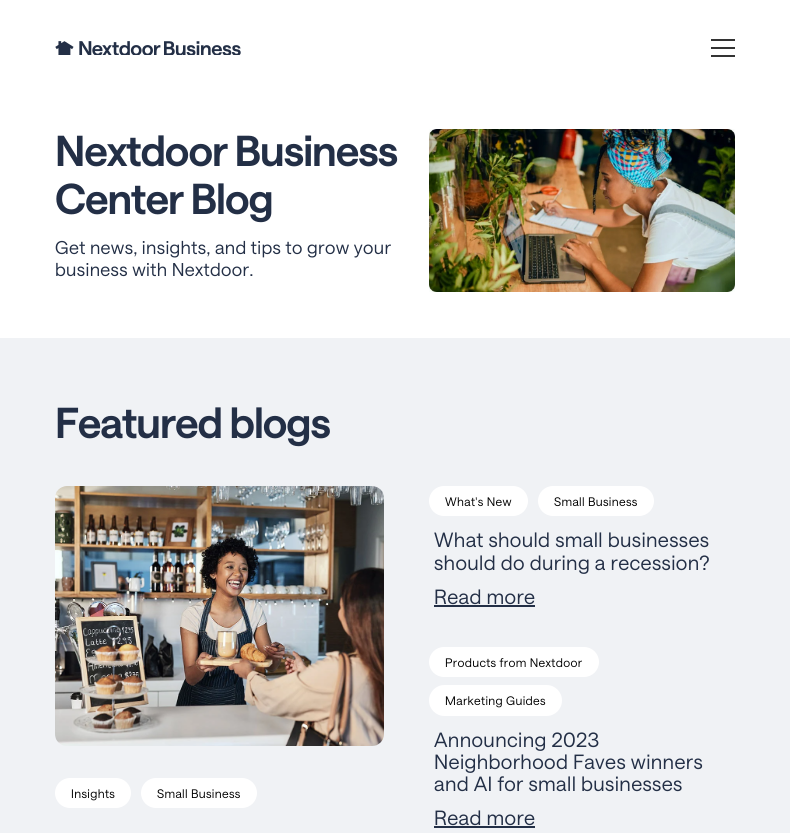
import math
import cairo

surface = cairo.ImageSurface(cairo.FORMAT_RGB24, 790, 833)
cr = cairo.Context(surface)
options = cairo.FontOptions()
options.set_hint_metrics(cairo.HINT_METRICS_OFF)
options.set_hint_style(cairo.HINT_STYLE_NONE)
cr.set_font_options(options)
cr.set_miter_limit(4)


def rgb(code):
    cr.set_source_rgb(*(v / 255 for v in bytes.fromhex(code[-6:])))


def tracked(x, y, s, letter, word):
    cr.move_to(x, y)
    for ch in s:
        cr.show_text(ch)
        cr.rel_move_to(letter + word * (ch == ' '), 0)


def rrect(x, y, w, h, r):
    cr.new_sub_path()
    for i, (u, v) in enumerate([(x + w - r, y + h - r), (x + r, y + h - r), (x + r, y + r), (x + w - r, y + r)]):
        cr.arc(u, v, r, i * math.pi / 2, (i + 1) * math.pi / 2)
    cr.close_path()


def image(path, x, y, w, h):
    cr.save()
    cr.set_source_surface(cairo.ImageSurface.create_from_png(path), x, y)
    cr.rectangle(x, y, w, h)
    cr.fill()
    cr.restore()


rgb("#ffffff")
cr.paint()
image("img/1.png", 55, 41, 186, 14)
for x, y, w, h, color in [
    (711, 39, 24, 2, "#333333"),
    (711, 47, 24, 2, "#333333"),
    (711, 55, 24, 2, "#333333"),
]:
    rgb(color)
    cr.rectangle(x, y, w, h)
    cr.fill()
image("img/2.png", 429, 129, 306, 163)
rgb("#f0f2f5")
cr.rectangle(0, 338, 790, 495)
cr.fill()
image("img/3.png", 55, 486, 329, 260)
rgb("#ffffff")
rrect(55, 778, 76, 30, 15)
cr.fill()
rrect(141, 778, 116, 30, 15)
cr.fill()
rrect(429, 486, 99, 30, 15)
cr.fill()
rrect(538, 486, 116, 30, 15)
cr.fill()
rgb("#232f46")
cr.rectangle(434, 605, 101, 2)
cr.fill()
rgb("#ffffff")
rrect(429, 647, 170, 30, 15)
cr.fill()
rrect(429, 685, 133, 31, 15.5)
cr.fill()
rgb("#232f46")
cr.rectangle(434, 826, 101, 2)
cr.fill()
cr.select_font_face("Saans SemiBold")
cr.set_font_size(42)
tracked(55, 166, "Nextdoor Business", -1, 0)
tracked(55, 214, "Center Blog", -1, 0)
cr.select_font_face("Saans")
cr.set_font_size(18)
tracked(55, 254, "Get news, insights, and tips to grow your", 0.35, 0)
tracked(55, 276, "business with Nextdoor.", 0.35, 0)
cr.select_font_face("Saans SemiBold")
cr.set_font_size(42)
tracked(55, 438, "Featured blogs", -1, 0)
cr.select_font_face("Saans")
cr.set_font_size(12)
rgb("#000000")
for x, y, s in [
    (71, 798, "Insights"),
    (157, 798, "Small Business"),
    (445, 506, "What's New"),
    (554, 506, "Small Business"),
]:
    tracked(x, y, s, 0.35, 0)
cr.set_font_size(20)
rgb("#232f46")
for x, y, s in [
    (434, 547, "What should small businesses"),
    (434, 570, "should do during a recession?"),
    (434, 604, "Read more"),
]:
    tracked(x, y, s, 0.35, 0)
cr.set_font_size(12)
rgb("#000000")
tracked(445, 667, "Products from Nextdoor", 0.35, 0)
tracked(445, 705, "Marketing Guides", 0.35, 0)
cr.set_font_size(20)
rgb("#232f46")
for x, y, s in [
    (434, 747, "Announcing 2023"),
    (434, 769, "Neighborhood Faves winners"),
    (434, 791, "and AI for small businesses"),
    (434, 825, "Read more"),
]:
    tracked(x, y, s, 0.35, 0)
surface.write_to_png("page.png")
